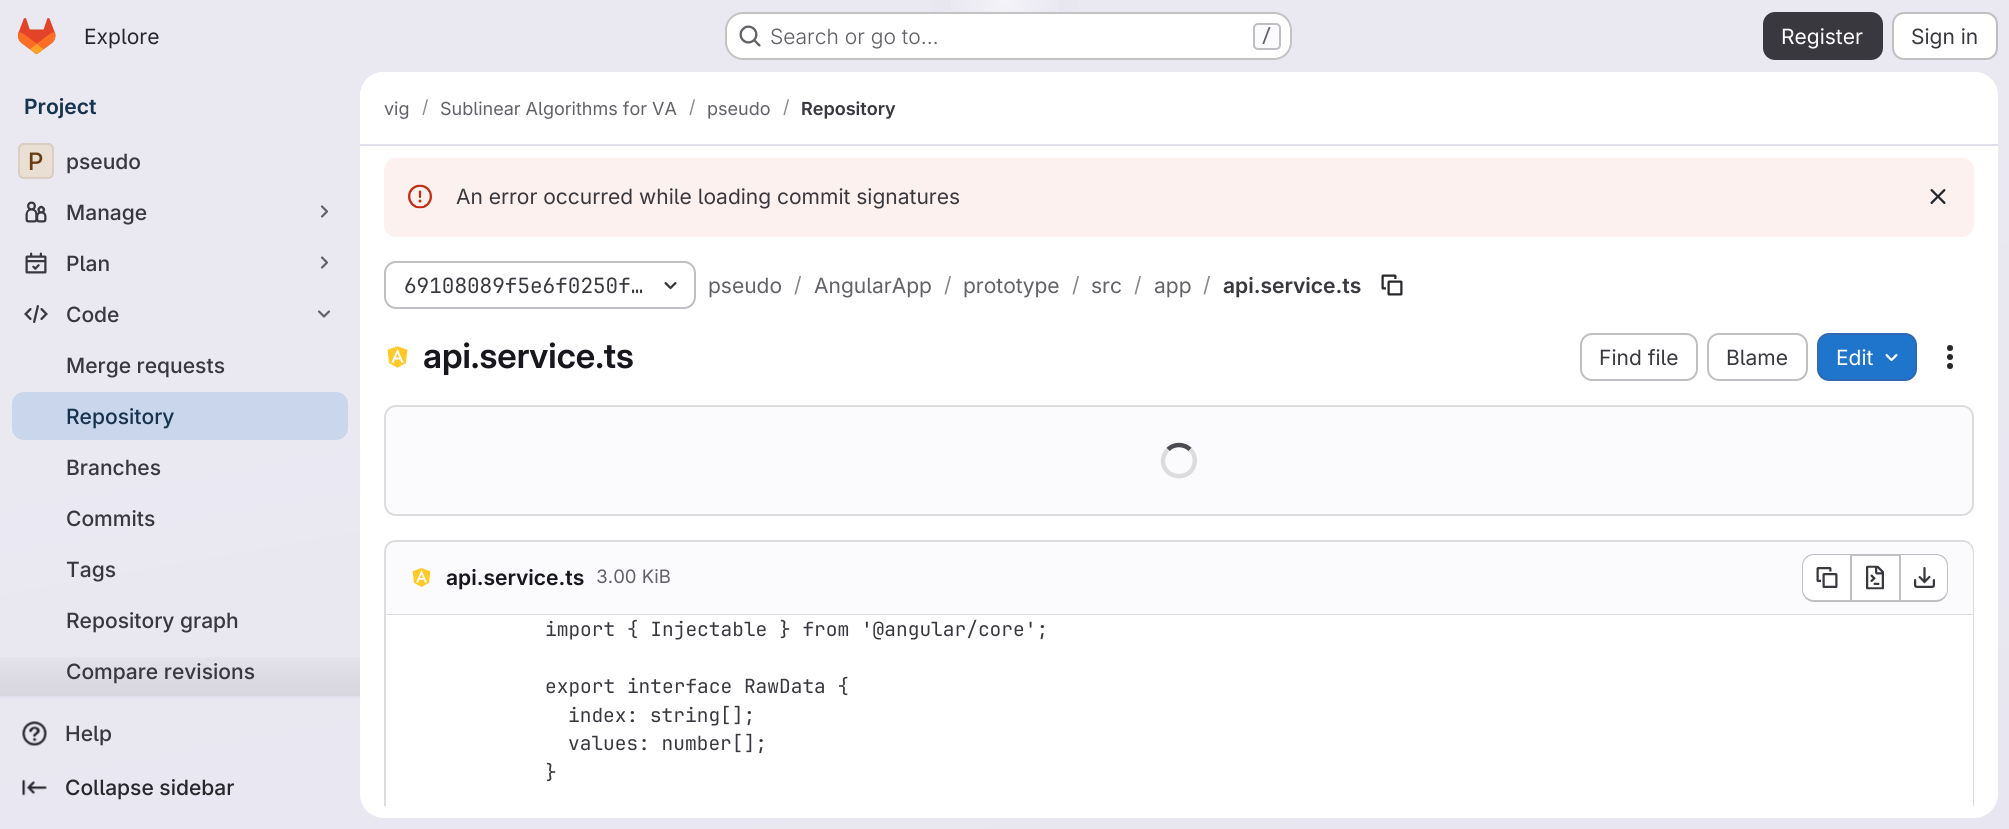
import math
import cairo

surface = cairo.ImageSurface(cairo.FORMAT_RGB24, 2009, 829)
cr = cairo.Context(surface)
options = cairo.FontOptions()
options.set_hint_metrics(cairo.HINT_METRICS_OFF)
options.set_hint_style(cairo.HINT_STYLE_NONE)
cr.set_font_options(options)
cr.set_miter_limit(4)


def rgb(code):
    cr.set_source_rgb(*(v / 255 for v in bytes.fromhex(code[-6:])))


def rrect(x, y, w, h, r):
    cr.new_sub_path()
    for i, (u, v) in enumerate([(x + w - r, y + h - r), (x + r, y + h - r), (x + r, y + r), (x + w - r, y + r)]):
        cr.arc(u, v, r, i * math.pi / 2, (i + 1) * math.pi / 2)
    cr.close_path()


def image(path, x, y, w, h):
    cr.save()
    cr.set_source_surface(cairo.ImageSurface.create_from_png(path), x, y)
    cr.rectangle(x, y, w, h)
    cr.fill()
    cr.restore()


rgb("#ffffff")
cr.paint()
gradient = cairo.LinearGradient(1106, 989, 904, -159)
gradient.add_color_stop_rgba(0, 0.91, 0.902, 0.941, 1)
gradient.add_color_stop_rgba(0.7, 0.918, 0.914, 0.949, 1)
cr.set_source(gradient)
cr.rectangle(0, 0, 2009, 829)
cr.fill()
gradient = cairo.RadialGradient(0, 0, 0, 0, 0, 1)
gradient.set_matrix(cairo.Matrix(1 / 1005, 0, 0, 1 / 830, -1 * 1005 / 1005, -1 * 0 / 830))
gradient.add_color_stop_rgba(0, 0.894, 0.886, 0.929, 1)
gradient.add_color_stop_rgba(0.1, 0.894, 0.886, 0.929, 0)
cr.set_source(gradient)
cr.rectangle(932, 0, 146, 60)
cr.fill()
gradient = cairo.RadialGradient(1005, 0, 0, 1005, 0, 1303)
gradient.add_color_stop_rgba(0, 1, 1, 1, 0.6)
gradient.add_color_stop_rgba(0.05, 1, 1, 1, 0)
cr.set_source(gradient)
cr.rectangle(951, 0, 108, 54)
cr.fill()
image("img/1.png", 18, 18, 38, 36)
rgb("#ffffff")
rrect(725, 12, 567, 48, 18)
cr.fill()
rrect(726, 13, 565, 46, 17)
cr.set_source_rgba(0.02, 0.02, 0.024, 0.24)
cr.stroke()
image("img/2.png", 739, 25, 22, 22)
rgb("#fbfafd")
rrect(1254, 24, 26, 25, 4)
cr.fill_preserve()
rgb("#bfbfc3")
cr.stroke()
rgb("#3a383f")
rrect(1764, 13, 118, 46, 11)
cr.fill_preserve()
cr.stroke()
rgb("#ffffff")
rrect(1893, 13, 104, 46, 11)
cr.fill_preserve()
rgb("#bfbfc3")
cr.stroke()
rgb("#e1dfec")
cr.rectangle(0, 696, 360, 2)
cr.fill()
rgb("#eadfd3")
rrect(18, 143, 36, 36, 6)
cr.fill()
rrect(19, 144, 34, 34, 5)
cr.set_source_rgba(0.02, 0.02, 0.024, 0.08)
cr.stroke()
image("img/3.png", 25, 201, 22, 22)
cr.new_path()
cr.move_to(322, 206.5)
cr.line_to(327, 211.5)
cr.line_to(322, 216.5)
rgb("#626168")
cr.set_line_width(2.2)
cr.set_line_cap(cairo.LINE_CAP_ROUND)
cr.set_line_join(cairo.LINE_JOIN_ROUND)
cr.stroke()
image("img/4.png", 25, 252, 22, 22)
cr.new_path()
cr.move_to(322, 257.5)
cr.line_to(327, 262.5)
cr.line_to(322, 267.5)
cr.stroke()
image("img/5.png", 24, 305, 24, 18)
cr.new_path()
cr.move_to(329, 311.5)
cr.line_to(324, 316.5)
cr.line_to(319, 311.5)
cr.stroke()
rgb("#c9d6eb")
rrect(12, 392, 336, 48, 12)
cr.fill()
gradient = cairo.LinearGradient(180, 642, 180, 696)
gradient.add_color_stop_rgba(0, 0.02, 0.02, 0.024, 0)
gradient.add_color_stop_rgba(1, 0.02, 0.02, 0.024, 0.08)
cr.set_source(gradient)
cr.rectangle(0, 657, 360, 39)
cr.fill()
image("img/6.png", 22, 721, 25, 25)
image("img/7.png", 22, 779, 25, 17)
rgb("#ffffff")
rrect(360, 72, 1638, 746, 24)
cr.fill()
cr.new_path()
cr.move_to(384, 72)
cr.line_to(1974, 72)
cr.curve_to(1987.5, 72, 1998, 82.5, 1998, 96)
cr.line_to(1998, 146)
cr.line_to(360, 146)
cr.line_to(360, 96)
cr.curve_to(360, 82.5, 370.5, 72, 384, 72)
cr.close_path()
cr.fill()
rgb("#e1dfec")
cr.rectangle(360, 144, 1638, 2)
cr.fill()
rgb("#fcf1ef")
rrect(384, 158, 1590, 79, 12)
cr.fill()
image("img/8.png", 408, 184, 24, 25)
image("img/9.png", 1930, 189, 16, 15)
rrect(385, 262, 310, 46, 11)
rgb("#bfbfc3")
cr.set_line_width(2)
cr.set_line_cap(cairo.LINE_CAP_BUTT)
cr.set_line_join(cairo.LINE_JOIN_MITER)
cr.stroke()
image("img/10.png", 664, 282, 13, 8)
image("img/11.png", 1381, 274, 22, 22)
image("img/12.png", 387, 346, 21, 22)
rrect(1581, 334, 116, 46, 11)
cr.stroke()
rrect(1708, 334, 99, 46, 11)
cr.stroke()
rgb("#1f75cb")
rrect(1818, 334, 98, 46, 11)
cr.fill_preserve()
rgb("#2f68b4")
cr.stroke()
image("img/13.png", 1885, 354, 13, 8)
image("img/14.png", 1947, 345, 6, 24)
rgb("#fbfafd")
rrect(385, 406, 1588, 109, 11)
cr.fill_preserve()
rgb("#dcdcde")
cr.stroke()
cr.new_path()
cr.move_to(1168, 449.5)
cr.curve_to(1174, 443.5, 1184, 443.5, 1190, 449.5)
rgb("#4c4b51")
cr.set_line_width(4.5)
cr.stroke()
cr.new_path()
cr.move_to(1190, 449.5)
cr.curve_to(1194, 453, 1195.5, 458.5, 1194.5, 463.5)
cr.curve_to(1191, 482, 1163, 479.5, 1163, 460.5)
cr.curve_to(1163, 456.5, 1165, 452.5, 1168, 449.5)
rgb("#dcdcde")
cr.stroke()
cr.save()
cr.rectangle(360, 146, 1638, 660)
cr.clip()
cr.new_path()
cr.move_to(396, 540)
cr.curve_to(389, 540, 384, 545, 384, 552)
cr.line_to(384, 818)
cr.line_to(386, 818)
cr.line_to(386, 552)
cr.curve_to(386, 546, 390, 542, 396, 542)
cr.line_to(1962, 542)
cr.curve_to(1968, 542, 1972, 546, 1972, 552)
cr.line_to(1972, 818)
cr.line_to(1974, 818)
cr.line_to(1974, 552)
cr.curve_to(1974, 545, 1969, 540, 1962, 540)
cr.close_path()
cr.fill()
cr.restore()
rgb("#fbfafd")
cr.new_path()
cr.move_to(397, 542)
cr.line_to(1962, 542)
cr.curve_to(1968, 542, 1973, 547, 1973, 553)
cr.line_to(1973, 615)
cr.line_to(386, 615)
cr.line_to(386, 553)
cr.curve_to(386, 547, 391, 542, 397, 542)
cr.close_path()
cr.fill()
rgb("#dcdcde")
cr.rectangle(386, 614, 1587, 1)
cr.fill()
image("img/15.png", 412, 568, 19, 19)
rgb("#ffffff")
cr.new_path()
cr.move_to(1814, 555)
cr.line_to(1850, 555)
cr.line_to(1850, 600)
cr.line_to(1814, 600)
cr.curve_to(1808, 600, 1803, 595, 1803, 589)
cr.line_to(1803, 566)
cr.curve_to(1803, 560, 1808, 555, 1814, 555)
cr.close_path()
cr.fill()
rgb("#bfbfc3")
cr.set_fill_rule(cairo.FILL_RULE_EVEN_ODD)
cr.new_path()
cr.move_to(1814, 554)
cr.line_to(1850, 554)
cr.line_to(1850, 602)
cr.line_to(1814, 602)
cr.curve_to(1807, 602, 1802, 596, 1802, 590)
cr.line_to(1802, 566)
cr.curve_to(1802, 559, 1807, 554, 1814, 554)
cr.close_path()
cr.move_to(1814, 555)
cr.line_to(1850, 555)
cr.line_to(1850, 600)
cr.line_to(1814, 600)
cr.curve_to(1808, 600, 1803, 595, 1803, 590)
cr.line_to(1803, 566)
cr.curve_to(1803, 560, 1808, 555, 1814, 555)
cr.close_path()
cr.fill()
image("img/16.png", 1816, 567, 22, 21)
for x, y, w, h, color in [
    (1852, 556, 47, 44, "#ffffff"),
    (1851, 554, 48, 2, "#bfbfc3"),
    (1851, 600, 48, 2, "#bfbfc3"),
    (1850, 554, 2, 48, "#bfbfc3"),
]:
    rgb(color)
    cr.rectangle(x, y, w, h)
    cr.fill()
image("img/17.png", 1866, 565, 18, 25)
rgb("#ffffff")
cr.new_path()
cr.move_to(1901, 555)
cr.line_to(1936, 555)
cr.curve_to(1942, 555, 1947, 560, 1947, 566)
cr.line_to(1947, 589)
cr.curve_to(1947, 595, 1942, 600, 1936, 600)
cr.line_to(1901, 600)
cr.close_path()
cr.fill()
rgb("#bfbfc3")
cr.new_path()
cr.move_to(1900, 554)
cr.line_to(1936, 554)
cr.curve_to(1943, 554, 1948, 559, 1948, 566)
cr.line_to(1948, 590)
cr.curve_to(1948, 596, 1943, 602, 1936, 602)
cr.line_to(1900, 602)
cr.close_path()
cr.move_to(1900, 555)
cr.line_to(1936, 555)
cr.curve_to(1942, 555, 1947, 560, 1947, 566)
cr.line_to(1947, 590)
cr.curve_to(1947, 595, 1942, 600, 1936, 600)
cr.line_to(1900, 600)
cr.close_path()
cr.fill()
cr.rectangle(1899, 554, 2, 48)
cr.fill()
image("img/18.png", 1914, 567, 21, 21)
rgb("#ffffff")
cr.rectangle(1972, 615, 1, 191)
cr.fill()
cr.select_font_face("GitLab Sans")
cr.set_font_size(21)
rgb("#28272d")
cr.move_to(84, 44)
cr.show_text("Explore")
cr.select_font_face("GitLab Sans Light")
rgb("#626168")
cr.move_to(770, 44)
cr.show_text("Search or go to…")
cr.select_font_face("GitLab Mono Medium")
cr.set_font_size(18)
cr.move_to(1261, 42)
cr.show_text("/")
cr.select_font_face("GitLab Sans")
cr.set_font_size(21)
rgb("#ffffff")
cr.move_to(1781, 44)
cr.show_text("Register")
rgb("#3a383f")
cr.move_to(1911, 44)
cr.show_text("Sign in")
cr.select_font_face("GitLab Sans SemiBold")
rgb("#18334e")
cr.move_to(24, 114)
cr.show_text("Project")
cr.select_font_face("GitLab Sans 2 Medium")
cr.set_font_size(24)
rgb("#693c14")
cr.move_to(28, 170)
cr.show_text("P")
cr.select_font_face("GitLab Sans Medium")
cr.set_font_size(21)
rgb("#3a383f")
for x, y, s in [
    (66, 169, "pseudo"),
    (66, 220, "Manage"),
    (66, 271, "Plan"),
    (66, 322, "Code"),
    (66, 373, "Merge requests"),
]:
    cr.move_to(x, y)
    cr.show_text(s)
rgb("#18334e")
cr.move_to(66, 424)
cr.show_text("Repository")
rgb("#3a383f")
for x, y, s in [
    (66, 475, "Branches"),
    (66, 526, "Commits"),
    (66, 577, "Tags"),
    (66, 628, "Repository graph"),
    (66, 679, "Compare revisions"),
    (65, 741, "Help"),
]:
    cr.move_to(x, y)
    cr.show_text(s)
rgb("#28272d")
cr.move_to(65, 795)
cr.show_text("Collapse sidebar")
cr.select_font_face("GitLab Sans")
cr.set_font_size(18)
rgb("#626168")
cr.move_to(384, 115)
cr.show_text("vig")
rgb("#89888d")
cr.move_to(422, 113)
cr.show_text("/")
rgb("#626168")
cr.move_to(440, 115)
cr.show_text("Sublinear Algorithms for VA")
rgb("#89888d")
cr.move_to(689, 113)
cr.show_text("/")
rgb("#626168")
cr.move_to(707, 115)
cr.show_text("pseudo")
rgb("#89888d")
cr.move_to(783, 113)
cr.show_text("/")
cr.select_font_face("GitLab Sans SemiBold")
rgb("#3a383f")
cr.move_to(801, 115)
cr.show_text("Repository")
cr.select_font_face("GitLab Sans")
cr.set_font_size(21)
cr.move_to(456, 204)
cr.show_text("An error occurred while loading commit signatures")
cr.select_font_face("GitLab Mono")
cr.move_to(404, 293)
cr.show_text("69108089f5e6f0250f…")
cr.select_font_face("GitLab Sans")
rgb("#626168")
cr.move_to(708, 293)
cr.show_text("pseudo")
rgb("#89888d")
cr.move_to(794, 292)
cr.show_text("/")
rgb("#626168")
cr.move_to(814, 293)
cr.show_text("AngularApp")
rgb("#89888d")
cr.move_to(944, 292)
cr.show_text("/")
rgb("#626168")
cr.move_to(963, 293)
cr.show_text("prototype")
rgb("#89888d")
cr.move_to(1072, 292)
cr.show_text("/")
rgb("#626168")
cr.move_to(1091, 293)
cr.show_text("src")
rgb("#89888d")
cr.move_to(1134, 292)
cr.show_text("/")
rgb("#626168")
cr.move_to(1154, 293)
cr.show_text("app")
rgb("#89888d")
cr.move_to(1203, 292)
cr.show_text("/")
cr.select_font_face("GitLab Sans SemiBold")
rgb("#3a383f")
cr.move_to(1223, 293)
cr.show_text("api.service.ts")
cr.select_font_face("GitLab Sans 2 SemiBold")
cr.set_font_size(34.5)
rgb("#18171d")
cr.move_to(423, 368)
cr.show_text("api.service.ts")
cr.select_font_face("GitLab Sans")
cr.set_font_size(21)
rgb("#3a383f")
cr.move_to(1599, 365)
cr.show_text("Find file")
cr.move_to(1726, 365)
cr.show_text("Blame")
rgb("#ffffff")
cr.move_to(1836, 365)
cr.show_text("Edit")
cr.select_font_face("GitLab Sans SemiBold")
rgb("#18171d")
cr.move_to(446, 585)
cr.show_text("api.service.ts")
cr.select_font_face("GitLab Sans")
cr.set_font_size(18.5)
rgb("#626168")
cr.move_to(596, 583)
cr.show_text("3.00 KiB")
cr.select_font_face("GitLab Mono")
cr.set_font_size(19.5)
rgb("#3a383f")
for x, y, s in [
    (545, 636, "import { Injectable } from '@angular/core';"),
    (545, 693, "export interface RawData {"),
    (568, 722, "index: string[];"),
    (568, 750, "values: number[];"),
    (545, 779, "}"),
]:
    cr.move_to(x, y)
    cr.show_text(s)
surface.write_to_png("page.png")
